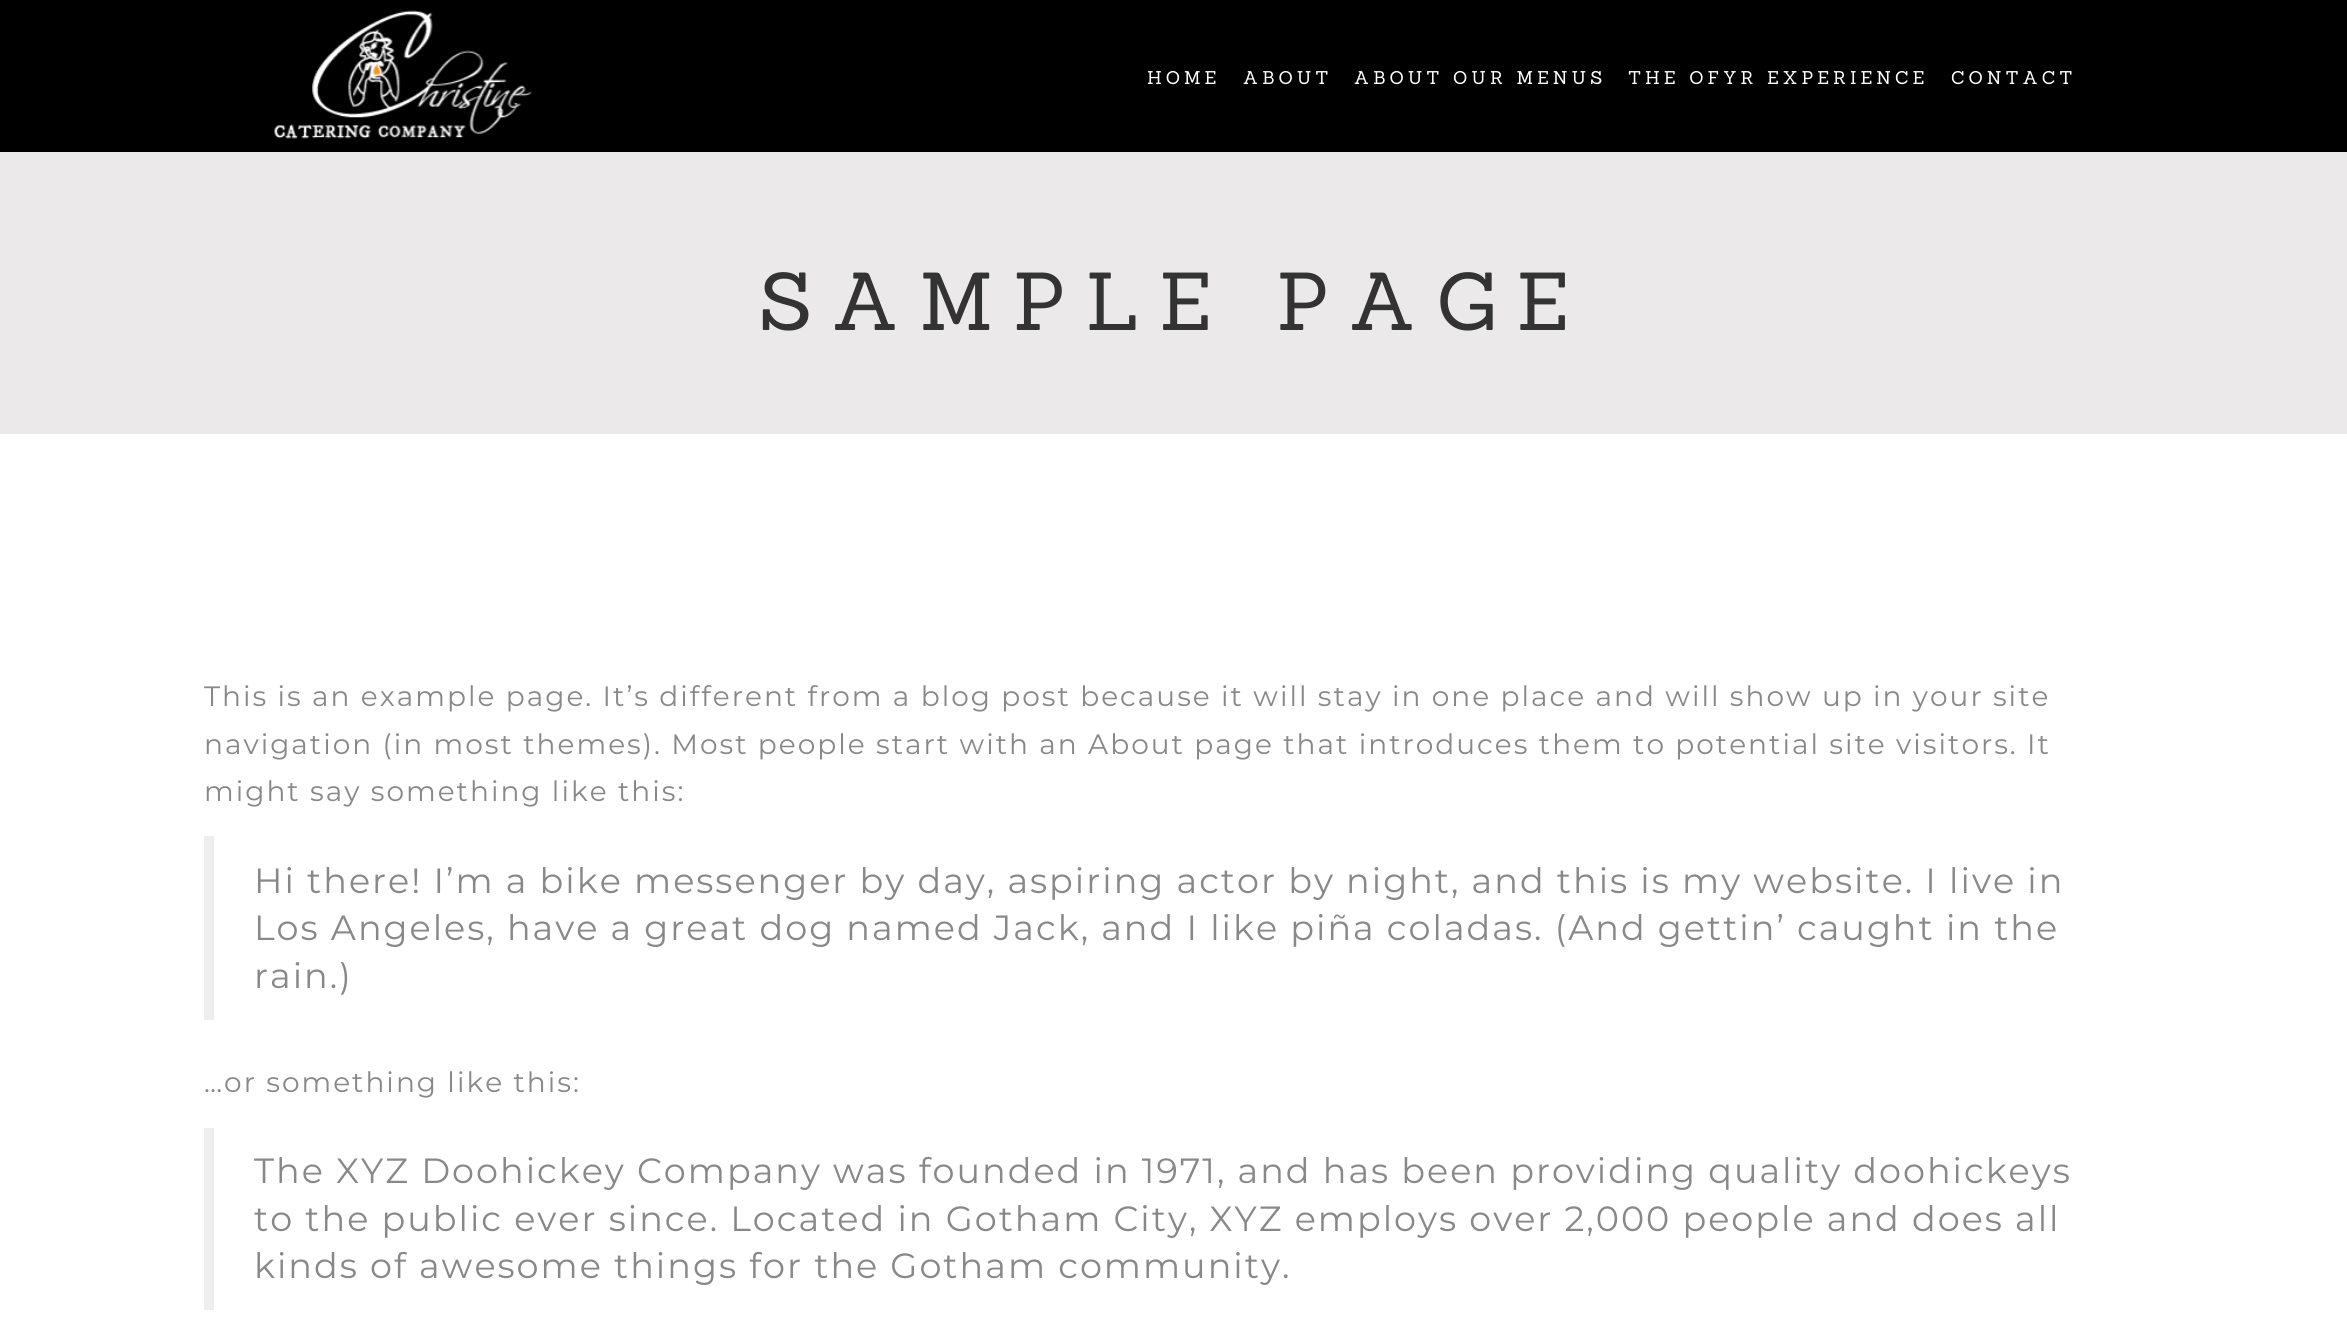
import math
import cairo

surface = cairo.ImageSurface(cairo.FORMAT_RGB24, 2347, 1333)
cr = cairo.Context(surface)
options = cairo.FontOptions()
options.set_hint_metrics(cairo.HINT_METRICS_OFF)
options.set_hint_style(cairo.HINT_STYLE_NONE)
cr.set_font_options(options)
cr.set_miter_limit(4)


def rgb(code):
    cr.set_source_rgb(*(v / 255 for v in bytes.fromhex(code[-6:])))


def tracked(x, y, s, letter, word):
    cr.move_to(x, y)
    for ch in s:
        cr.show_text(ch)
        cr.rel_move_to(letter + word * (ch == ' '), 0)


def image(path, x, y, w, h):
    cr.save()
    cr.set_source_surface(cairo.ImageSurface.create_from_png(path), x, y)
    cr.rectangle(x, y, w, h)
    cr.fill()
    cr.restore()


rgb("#ffffff")
cr.paint()
rgb("#000000")
cr.rectangle(0, 0, 2347, 152)
cr.fill()
image("img/1.png", 274, 10, 258, 129)
for x, y, w, h, color in [
    (0, 152, 2347, 282, "#ebe9e9"),
    (204, 836, 10, 184, "#eeeeee"),
    (204, 1128, 10, 182, "#eeeeee"),
]:
    rgb(color)
    cr.rectangle(x, y, w, h)
    cr.fill()
cr.select_font_face("Sanchez")
cr.set_font_size(18)
rgb("#ffffff")
for x, y, s in [
    (1147, 84, "HOME"),
    (1243, 84, "ABOUT"),
    (1354, 84, "ABOUT OUR MENUS"),
    (1628, 84, "THE OFYR EXPERIENCE"),
    (1951, 84, "CONTACT"),
]:
    tracked(x, y, s, 4, 0)
cr.set_font_size(80)
rgb("#333333")
tracked(759, 330, "SAMPLE PAGE", 20, 0)
cr.select_font_face("Montserrat")
cr.set_font_size(28)
rgb("#888888")
for x, y, s in [
    (204, 706, "This is an example page. It’s different from a blog post because it will stay in one place and will show up in your site"),
    (204, 754, "navigation (in most themes). Most people start with an About page that introduces them to potential site visitors. It"),
    (204, 801, "might say something like this:"),
]:
    tracked(x, y, s, 2, 0)
cr.set_font_size(35)
for x, y, s in [
    (254, 893, "Hi there! I’m a bike messenger by day, aspiring actor by night, and this is my website. I live in"),
    (254, 940, "Los Angeles, have a great dog named Jack, and I like piña coladas. (And gettin’ caught in the"),
    (254, 988, "rain.)"),
]:
    tracked(x, y, s, 2, 0)
cr.set_font_size(28)
tracked(204, 1092, "…or something like this:", 2, 0)
cr.set_font_size(35)
for x, y, s in [
    (254, 1183, "The XYZ Doohickey Company was founded in 1971, and has been providing quality doohickeys"),
    (254, 1231, "to the public ever since. Located in Gotham City, XYZ employs over 2,000 people and does all"),
    (254, 1278, "kinds of awesome things for the Gotham community."),
]:
    tracked(x, y, s, 2, 0)
surface.write_to_png("page.png")
